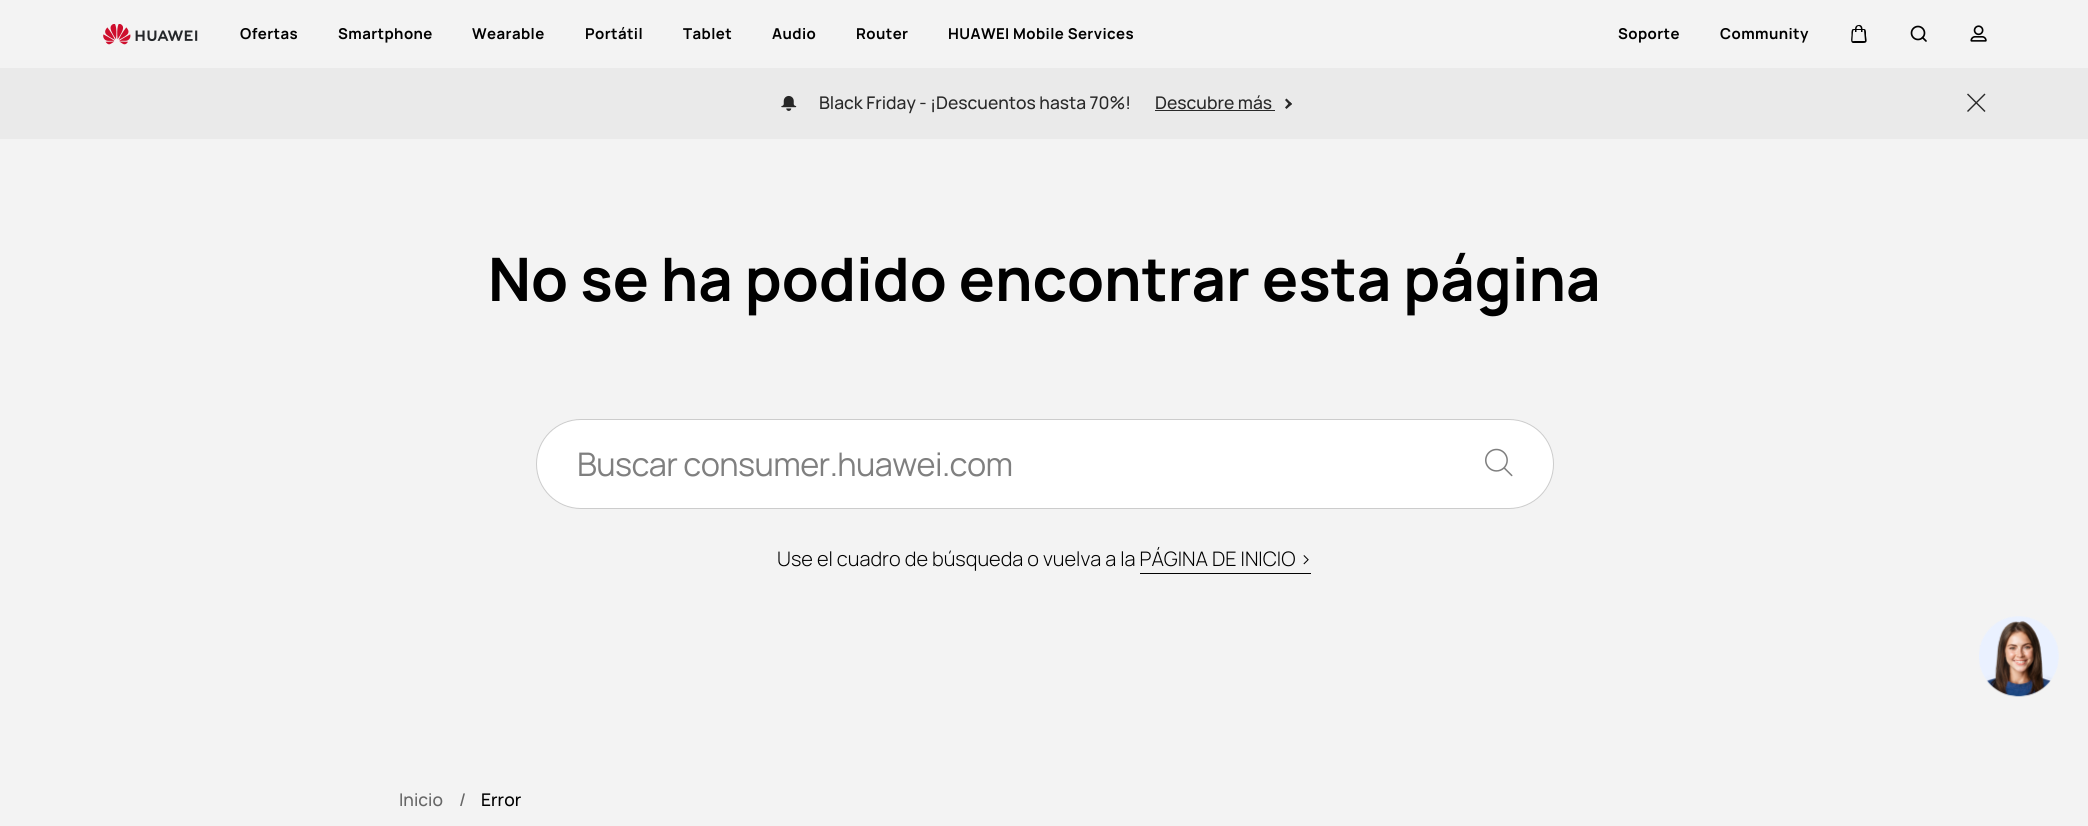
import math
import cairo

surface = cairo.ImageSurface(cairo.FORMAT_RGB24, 2088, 826)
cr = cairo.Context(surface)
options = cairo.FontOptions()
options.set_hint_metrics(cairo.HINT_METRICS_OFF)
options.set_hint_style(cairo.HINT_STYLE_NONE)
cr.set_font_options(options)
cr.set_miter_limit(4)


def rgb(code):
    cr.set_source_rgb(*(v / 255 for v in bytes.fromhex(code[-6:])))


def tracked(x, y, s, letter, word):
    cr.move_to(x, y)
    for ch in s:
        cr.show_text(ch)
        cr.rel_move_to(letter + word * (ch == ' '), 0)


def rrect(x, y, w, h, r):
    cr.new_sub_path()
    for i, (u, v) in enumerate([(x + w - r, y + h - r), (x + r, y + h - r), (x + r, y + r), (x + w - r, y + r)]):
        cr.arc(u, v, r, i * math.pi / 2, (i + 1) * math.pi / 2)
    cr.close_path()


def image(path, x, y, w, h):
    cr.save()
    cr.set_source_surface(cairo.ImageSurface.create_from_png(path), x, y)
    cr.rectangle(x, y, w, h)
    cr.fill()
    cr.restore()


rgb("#f3f3f3")
cr.paint()
image("img/1.png", 103, 24, 95, 21)
rgb("#000000")
cr.set_fill_rule(cairo.FILL_RULE_EVEN_ODD)
cr.new_path()
cr.move_to(1858.5, 25)
cr.curve_to(1856.5, 25, 1855, 26.5, 1855, 29)
cr.curve_to(1852, 29, 1852, 29, 1851.5, 32)
cr.line_to(1851.5, 35.5)
cr.curve_to(1851.5, 37, 1850, 42.5, 1853, 43)
cr.line_to(1863, 43)
cr.curve_to(1868, 43, 1866.5, 40.5, 1866, 35.5)
cr.line_to(1866, 32)
cr.curve_to(1865.5, 29, 1865.5, 29, 1862.5, 29)
cr.curve_to(1862.5, 26.5, 1861, 24.5, 1858.5, 25)
cr.close_path()
cr.move_to(1858.5, 26)
cr.curve_to(1860, 26, 1861, 27.5, 1861, 29)
cr.line_to(1856.5, 29)
cr.curve_to(1856.5, 27.5, 1857.5, 26, 1858.5, 26)
cr.close_path()
cr.move_to(1864, 30)
cr.line_to(1865, 41)
cr.line_to(1864.5, 41)
cr.line_to(1855, 41)
cr.curve_to(1852, 41, 1852.5, 42, 1852.5, 39)
cr.line_to(1853, 32)
cr.curve_to(1853.5, 30, 1853, 30, 1855, 30)
cr.line_to(1855, 32)
cr.line_to(1856.5, 32)
cr.line_to(1856.5, 30)
cr.line_to(1861, 30)
cr.line_to(1861, 32)
cr.line_to(1862.5, 32)
cr.line_to(1862.5, 30)
cr.close_path()
cr.fill()
cr.arc(1918, 33, 6.5, 0, 2 * math.pi)
cr.set_line_width(1.7)
cr.stroke()
cr.new_path()
cr.move_to(1926, 41)
cr.line_to(1922.5, 37.5)
cr.set_line_cap(cairo.LINE_CAP_ROUND)
cr.set_line_join(cairo.LINE_JOIN_ROUND)
cr.stroke()
image("img/2.png", 1970, 25, 17, 17)
rgb("#eaeaea")
cr.rectangle(0, 68, 2088, 71)
cr.fill()
image("img/3.png", 781, 95, 16, 16)
rgb("#292929")
cr.rectangle(1155, 110, 120, 1)
cr.fill()
cr.set_fill_rule(cairo.FILL_RULE_WINDING)
cr.new_path()
cr.move_to(1286.5, 98.5)
cr.line_to(1292, 104)
cr.line_to(1290, 105.5)
cr.line_to(1285, 100)
cr.close_path()
cr.fill()
cr.new_path()
cr.move_to(1290, 102)
cr.line_to(1292, 104)
cr.line_to(1286.5, 109)
cr.line_to(1285, 107.5)
cr.close_path()
cr.fill()
cr.new_path()
cr.move_to(1984.5, 93.5)
cr.line_to(1985.5, 94.5)
cr.line_to(1968, 112)
cr.line_to(1967, 111)
cr.close_path()
cr.fill()
cr.new_path()
cr.move_to(1967, 94.5)
cr.line_to(1968, 93.5)
cr.line_to(1985.5, 111)
cr.line_to(1984.5, 112)
cr.close_path()
cr.fill()
rgb("#ffffff")
rrect(536, 419, 1018, 90, 45)
cr.fill()
rrect(536.5, 419.5, 1017, 89, 44.5)
cr.set_source_rgba(0, 0, 0, 0.2)
cr.set_line_width(1)
cr.set_line_cap(cairo.LINE_CAP_BUTT)
cr.set_line_join(cairo.LINE_JOIN_MITER)
cr.stroke()
image("img/4.png", 1485, 448, 28, 29)
rgb("#030303")
cr.rectangle(1140, 573, 171, 1)
cr.fill()
image("img/5.png", 1979, 616, 80, 81)
cr.select_font_face("Manrope", cairo.FONT_SLANT_NORMAL, cairo.FONT_WEIGHT_BOLD)
cr.set_font_size(15)
rgb("#000000")
for x, y, s in [
    (240, 39, "Ofertas"),
    (338, 39, "Smartphone"),
    (472, 39, "Wearable"),
    (585, 39, "Portátil"),
    (683, 39, "Tablet"),
    (772, 39, "Audio"),
    (856, 39, "Router"),
    (948, 39, "HUAWEI Mobile Services"),
    (1618, 39, "Soporte"),
    (1720, 39, "Community"),
]:
    tracked(x, y, s, 0.4, 0)
cr.select_font_face("Manrope Medium")
cr.set_font_size(17.5)
rgb("#292929")
cr.move_to(819, 109)
cr.show_text("Black Friday - ¡Descuentos hasta 70%!")
cr.move_to(1155, 109)
cr.show_text("Descubre más")
cr.select_font_face("Manrope", cairo.FONT_SLANT_NORMAL, cairo.FONT_WEIGHT_BOLD)
cr.set_font_size(60)
rgb("#000000")
cr.move_to(488, 301)
cr.show_text("No se ha podido encontrar esta página")
cr.select_font_face("Manrope")
cr.set_font_size(32.5)
rgb("#7f7f7f")
tracked(577, 476, "Buscar consumer.huawei.com", -0.6, 0)
cr.select_font_face("Manrope Light")
cr.set_font_size(20)
rgb("#000000")
cr.move_to(777, 566)
cr.show_text("Use el cuadro de búsqueda o vuelva a la PÁGINA DE INICIO >")
cr.select_font_face("Manrope Medium")
cr.set_font_size(17.5)
rgb("#666666")
cr.move_to(399, 806)
cr.show_text("Inicio")
cr.move_to(459, 806)
cr.show_text("/")
rgb("#000000")
cr.move_to(481, 806)
cr.show_text("Error")
surface.write_to_png("page.png")
